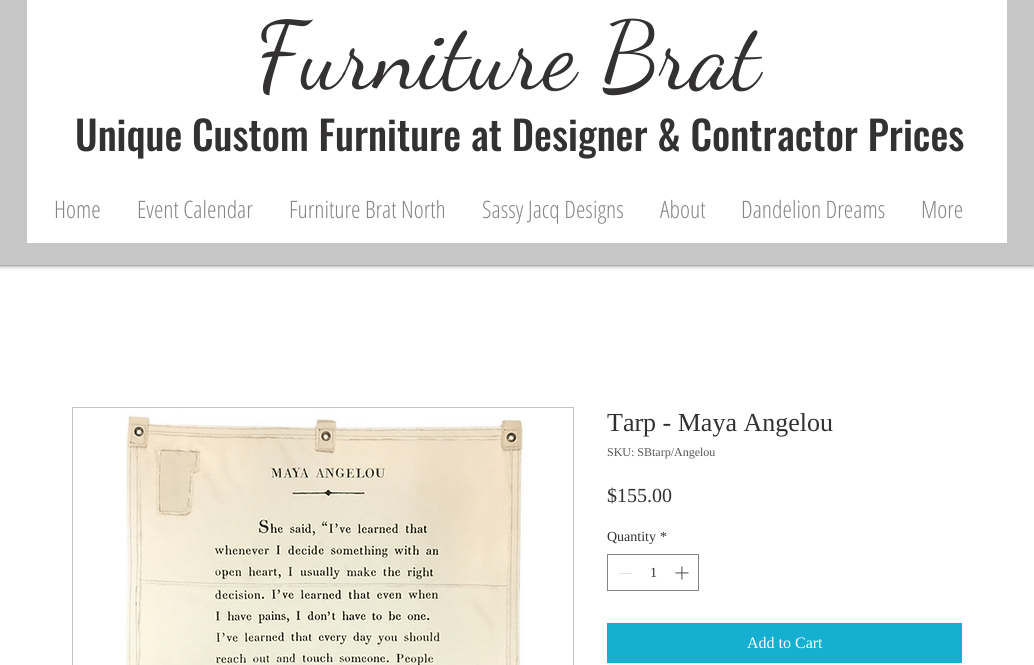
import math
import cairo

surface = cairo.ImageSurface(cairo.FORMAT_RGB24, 1034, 665)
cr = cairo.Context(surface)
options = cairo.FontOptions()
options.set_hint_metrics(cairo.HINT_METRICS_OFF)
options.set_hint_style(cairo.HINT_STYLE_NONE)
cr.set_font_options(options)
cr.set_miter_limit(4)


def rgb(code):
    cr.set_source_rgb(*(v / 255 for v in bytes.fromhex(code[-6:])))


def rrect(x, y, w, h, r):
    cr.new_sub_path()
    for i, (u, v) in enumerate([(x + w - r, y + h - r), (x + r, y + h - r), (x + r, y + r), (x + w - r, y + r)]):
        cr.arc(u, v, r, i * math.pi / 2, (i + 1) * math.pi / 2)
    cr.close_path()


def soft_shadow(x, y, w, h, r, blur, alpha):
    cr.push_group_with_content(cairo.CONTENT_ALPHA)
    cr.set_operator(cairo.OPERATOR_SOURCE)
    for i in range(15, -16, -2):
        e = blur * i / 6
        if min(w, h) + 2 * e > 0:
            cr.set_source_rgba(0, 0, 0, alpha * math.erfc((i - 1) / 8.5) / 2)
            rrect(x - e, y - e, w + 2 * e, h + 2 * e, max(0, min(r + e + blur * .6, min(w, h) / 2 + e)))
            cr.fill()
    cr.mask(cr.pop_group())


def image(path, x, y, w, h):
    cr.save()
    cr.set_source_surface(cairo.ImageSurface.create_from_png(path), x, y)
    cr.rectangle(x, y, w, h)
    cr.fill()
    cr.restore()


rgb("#ffffff")
cr.paint()
rgb("#000000")
soft_shadow(0, 0, 1034, 265, 0, 2.5, 0.7)
rgb("#c6c6c6")
cr.rectangle(0, 0, 1034, 265)
cr.fill()
rgb("#ffffff")
cr.rectangle(27, 0, 980, 243)
cr.fill()
cr.rectangle(72.5, 407.5, 501, 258)
rgb("#c2c2c2")
cr.set_line_width(1)
cr.stroke()
image("img/1.png", 125, 413, 401, 252)
cr.rectangle(607.5, 554.5, 91, 36)
rgb("#858383")
cr.stroke()
rgb("#e3e3e3")
cr.rectangle(619, 573, 13, 1)
cr.fill()
image("img/2.png", 675, 566, 14, 14)
rgb("#15afd1")
cr.rectangle(607, 623, 355, 40)
cr.fill()
cr.select_font_face("Dancing Script")
cr.set_font_size(95)
rgb("#333131")
cr.move_to(255, 87)
cr.show_text("Furniture Brat")
cr.select_font_face("Oswald Medium")
cr.set_font_size(40)
cr.move_to(75, 151)
cr.show_text("Unique Custom Furniture at Designer & Contractor Prices")
cr.select_font_face("Open Sans Condensed Light")
cr.set_font_size(24)
rgb("#858585")
for x, y, s in [
    (54, 218, "Home"),
    (137, 218, "Event Calendar"),
    (289, 218, "Furniture Brat North"),
    (482, 218, "Sassy Jacq Designs"),
    (660, 218, "About"),
    (741, 218, "Dandelion Dreams"),
    (921, 218, "More"),
]:
    cr.move_to(x, y)
    cr.show_text(s)
cr.select_font_face("Liberation Serif")
cr.set_font_size(26)
rgb("#333131")
cr.move_to(607, 431)
cr.show_text("Tarp - Maya Angelou")
cr.set_font_size(12)
rgb("#575656")
cr.move_to(607, 456)
cr.show_text("SKU: SBtarp/Angelou")
cr.set_font_size(20)
rgb("#333131")
cr.move_to(607, 502)
cr.show_text("$155.00")
cr.set_font_size(14)
for x, y, s in [
    (607, 541, "Quantity"),
    (660, 541, "*"),
    (650, 577, "1"),
]:
    cr.move_to(x, y)
    cr.show_text(s)
cr.set_font_size(16)
rgb("#ffffff")
cr.move_to(747, 648)
cr.show_text("Add to Cart")
surface.write_to_png("page.png")
